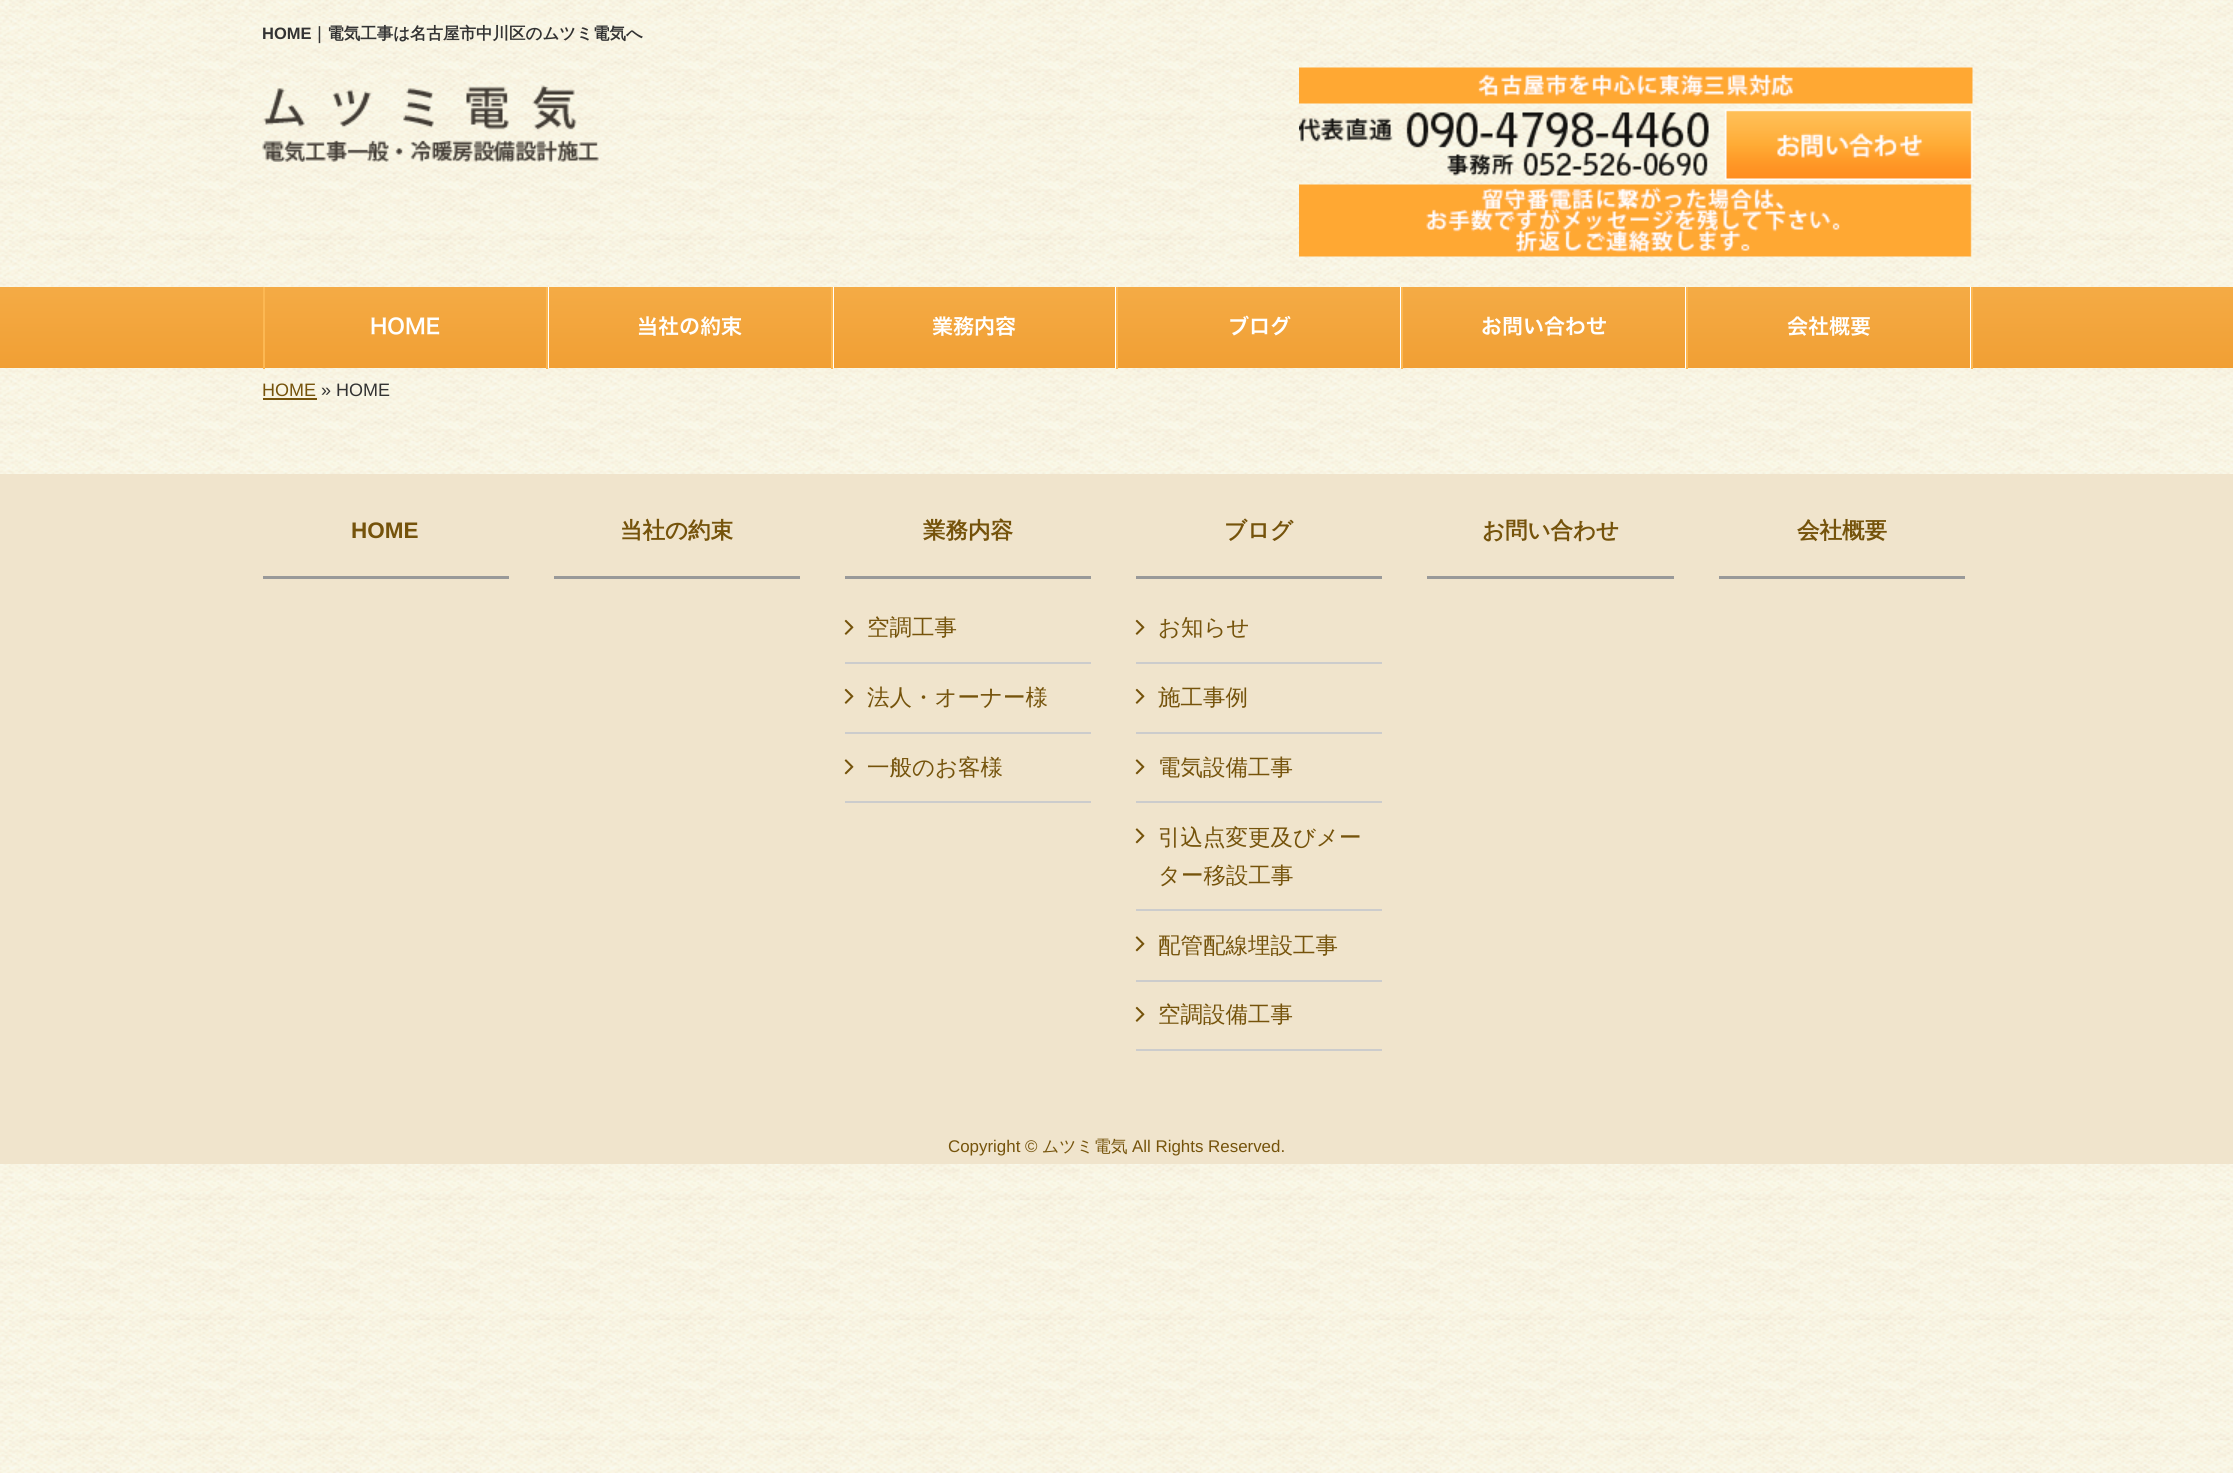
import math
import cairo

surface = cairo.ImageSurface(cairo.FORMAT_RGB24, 2233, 1473)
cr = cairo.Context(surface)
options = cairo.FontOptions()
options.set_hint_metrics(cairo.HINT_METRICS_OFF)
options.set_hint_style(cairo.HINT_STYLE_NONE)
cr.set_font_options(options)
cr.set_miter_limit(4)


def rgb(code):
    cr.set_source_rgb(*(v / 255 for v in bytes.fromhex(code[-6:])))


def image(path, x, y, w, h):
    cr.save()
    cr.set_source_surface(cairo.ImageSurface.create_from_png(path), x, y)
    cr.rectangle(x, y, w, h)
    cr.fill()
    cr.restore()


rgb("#ffffff")
cr.paint()
image("img/1.png", 0, 0, 2233, 1473)
image("img/2.png", 262, 85, 337, 77)
image("img/3.png", 1299, 67, 674, 190)
gradient = cairo.LinearGradient(1117, 286, 1117, 368)
gradient.add_color_stop_rgba(0, 0.957, 0.671, 0.271, 1)
gradient.add_color_stop_rgba(1, 0.945, 0.624, 0.204, 1)
cr.set_source(gradient)
cr.rectangle(0, 287, 2233, 81)
cr.fill()
for x, y, w, h, color in [
    (548, 287, 1423, 81, "#ffffff"),
    (263, 287, 2, 82, "#fcb853"),
    (546, 287, 2, 82, "#fcb853"),
]:
    rgb(color)
    cr.rectangle(x, y, w, h)
    cr.fill()
gradient = cairo.LinearGradient(690, 287, 690, 368)
gradient.add_color_stop_rgba(0, 0.957, 0.671, 0.271, 1)
gradient.add_color_stop_rgba(1, 0.945, 0.624, 0.204, 1)
cr.set_source(gradient)
cr.rectangle(549, 287, 282, 81)
cr.fill()
rgb("#fcb853")
cr.rectangle(831, 287, 2, 82)
cr.fill()
gradient = cairo.LinearGradient(974, 287, 974, 368)
gradient.add_color_stop_rgba(0, 0.957, 0.671, 0.271, 1)
gradient.add_color_stop_rgba(1, 0.945, 0.624, 0.204, 1)
cr.set_source(gradient)
cr.rectangle(834, 287, 281, 81)
cr.fill()
rgb("#fcb853")
cr.rectangle(1116, 287, 2, 82)
cr.fill()
gradient = cairo.LinearGradient(1259, 287, 1259, 368)
gradient.add_color_stop_rgba(0, 0.957, 0.671, 0.271, 1)
gradient.add_color_stop_rgba(1, 0.945, 0.624, 0.204, 1)
cr.set_source(gradient)
cr.rectangle(1118, 287, 282, 81)
cr.fill()
gradient = cairo.LinearGradient(1544, 287, 1544, 368)
gradient.add_color_stop_rgba(0, 0.957, 0.671, 0.271, 1)
gradient.add_color_stop_rgba(1, 0.945, 0.624, 0.204, 1)
cr.set_source(gradient)
cr.rectangle(1403, 287, 282, 81)
cr.fill()
rgb("#fcb853")
cr.rectangle(1401, 287, 2, 82)
cr.fill()
gradient = cairo.LinearGradient(1829, 287, 1829, 368)
gradient.add_color_stop_rgba(0, 0.957, 0.671, 0.271, 1)
gradient.add_color_stop_rgba(1, 0.945, 0.624, 0.204, 1)
cr.set_source(gradient)
cr.rectangle(1688, 287, 282, 81)
cr.fill()
for x, y, w, h, color in [
    (1971, 287, 2, 82, "#fcb853"),
    (1686, 287, 2, 82, "#fcb853"),
    (263, 398, 54, 2, "#75530b"),
    (0, 474, 2233, 690, "#f0e4cc"),
    (263, 576, 246, 3, "#999999"),
    (554, 576, 246, 3, "#999999"),
    (845, 576, 246, 3, "#999999"),
    (845, 662, 246, 2, "#cccccc"),
]:
    rgb(color)
    cr.rectangle(x, y, w, h)
    cr.fill()
image("img/4.png", 844, 619, 10, 16)
cr.rectangle(845, 732, 246, 2)
cr.fill()
image("img/4.png", 844, 688, 10, 16)
cr.rectangle(845, 801, 246, 2)
cr.fill()
image("img/5.png", 844, 759, 10, 16)
rgb("#999999")
cr.rectangle(1136, 576, 246, 3)
cr.fill()
rgb("#cccccc")
cr.rectangle(1136, 662, 246, 2)
cr.fill()
image("img/4.png", 1135, 619, 10, 16)
cr.rectangle(1136, 732, 246, 2)
cr.fill()
image("img/4.png", 1135, 688, 10, 16)
cr.rectangle(1136, 801, 246, 2)
cr.fill()
image("img/5.png", 1135, 759, 10, 16)
cr.rectangle(1136, 909, 246, 2)
cr.fill()
image("img/5.png", 1135, 828, 10, 16)
cr.rectangle(1136, 980, 246, 2)
cr.fill()
image("img/5.png", 1135, 936, 10, 16)
cr.rectangle(1136, 1049, 246, 2)
cr.fill()
image("img/4.png", 1135, 1006, 10, 16)
rgb("#999999")
cr.rectangle(1427, 576, 247, 3)
cr.fill()
cr.rectangle(1719, 576, 246, 3)
cr.fill()
cr.select_font_face("Liberation Sans", cairo.FONT_SLANT_NORMAL, cairo.FONT_WEIGHT_BOLD)
cr.set_font_size(16.5)
rgb("#333333")
cr.move_to(262, 39)
cr.show_text("HOME")
cr.select_font_face("WenQuanYi Zen Hei", cairo.FONT_SLANT_NORMAL, cairo.FONT_WEIGHT_BOLD)
cr.move_to(311, 39)
cr.show_text("｜電気工事は名古屋市中川区のムツミ電気へ")
cr.select_font_face("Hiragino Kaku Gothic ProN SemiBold")
cr.set_font_size(21)
rgb("#ffffff")
for x, y, s in [
    (370, 334, "HOME"),
    (637, 334, "当社の約束"),
    (932, 334, "業務内容"),
    (1228, 334, "ブログ"),
    (1481, 334, "お問い合わせ"),
    (1787, 334, "会社概要"),
]:
    cr.move_to(x, y)
    cr.show_text(s)
cr.select_font_face("Liberation Sans")
cr.set_font_size(18)
rgb("#75530b")
cr.move_to(262, 396)
cr.show_text("HOME")
rgb("#333333")
cr.move_to(321, 396)
cr.show_text("» HOME")
cr.select_font_face("Liberation Sans", cairo.FONT_SLANT_NORMAL, cairo.FONT_WEIGHT_BOLD)
cr.set_font_size(22.5)
rgb("#75530b")
cr.move_to(351, 538)
cr.show_text("HOME")
cr.select_font_face("WenQuanYi Zen Hei", cairo.FONT_SLANT_NORMAL, cairo.FONT_WEIGHT_BOLD)
cr.move_to(620, 538)
cr.show_text("当社の約束")
cr.move_to(923, 538)
cr.show_text("業務内容")
cr.select_font_face("WenQuanYi Zen Hei Medium")
for x, y, s in [
    (867, 635, "空調工事"),
    (867, 705, "法人・オーナー様"),
    (867, 775, "一般のお客様"),
]:
    cr.move_to(x, y)
    cr.show_text(s)
cr.select_font_face("WenQuanYi Zen Hei", cairo.FONT_SLANT_NORMAL, cairo.FONT_WEIGHT_BOLD)
cr.move_to(1224, 538)
cr.show_text("ブログ")
cr.select_font_face("WenQuanYi Zen Hei Medium")
for x, y, s in [
    (1158, 635, "お知らせ"),
    (1158, 705, "施工事例"),
    (1158, 775, "電気設備工事"),
    (1158, 845, "引込点変更及びメー"),
    (1158, 883, "ター移設工事"),
    (1158, 953, "配管配線埋設工事"),
    (1158, 1022, "空調設備工事"),
]:
    cr.move_to(x, y)
    cr.show_text(s)
cr.select_font_face("WenQuanYi Zen Hei", cairo.FONT_SLANT_NORMAL, cairo.FONT_WEIGHT_BOLD)
cr.move_to(1482, 538)
cr.show_text("お問い合わせ")
cr.move_to(1797, 538)
cr.show_text("会社概要")
cr.select_font_face("Liberation Sans")
cr.set_font_size(16.9)
cr.move_to(948, 1152)
cr.show_text("Copyright ©")
cr.select_font_face("WenQuanYi Zen Hei Medium")
cr.move_to(1042, 1152)
cr.show_text("ムツミ電気")
cr.select_font_face("Liberation Sans")
cr.move_to(1132, 1152)
cr.show_text("All Rights Reserved.")
surface.write_to_png("page.png")
